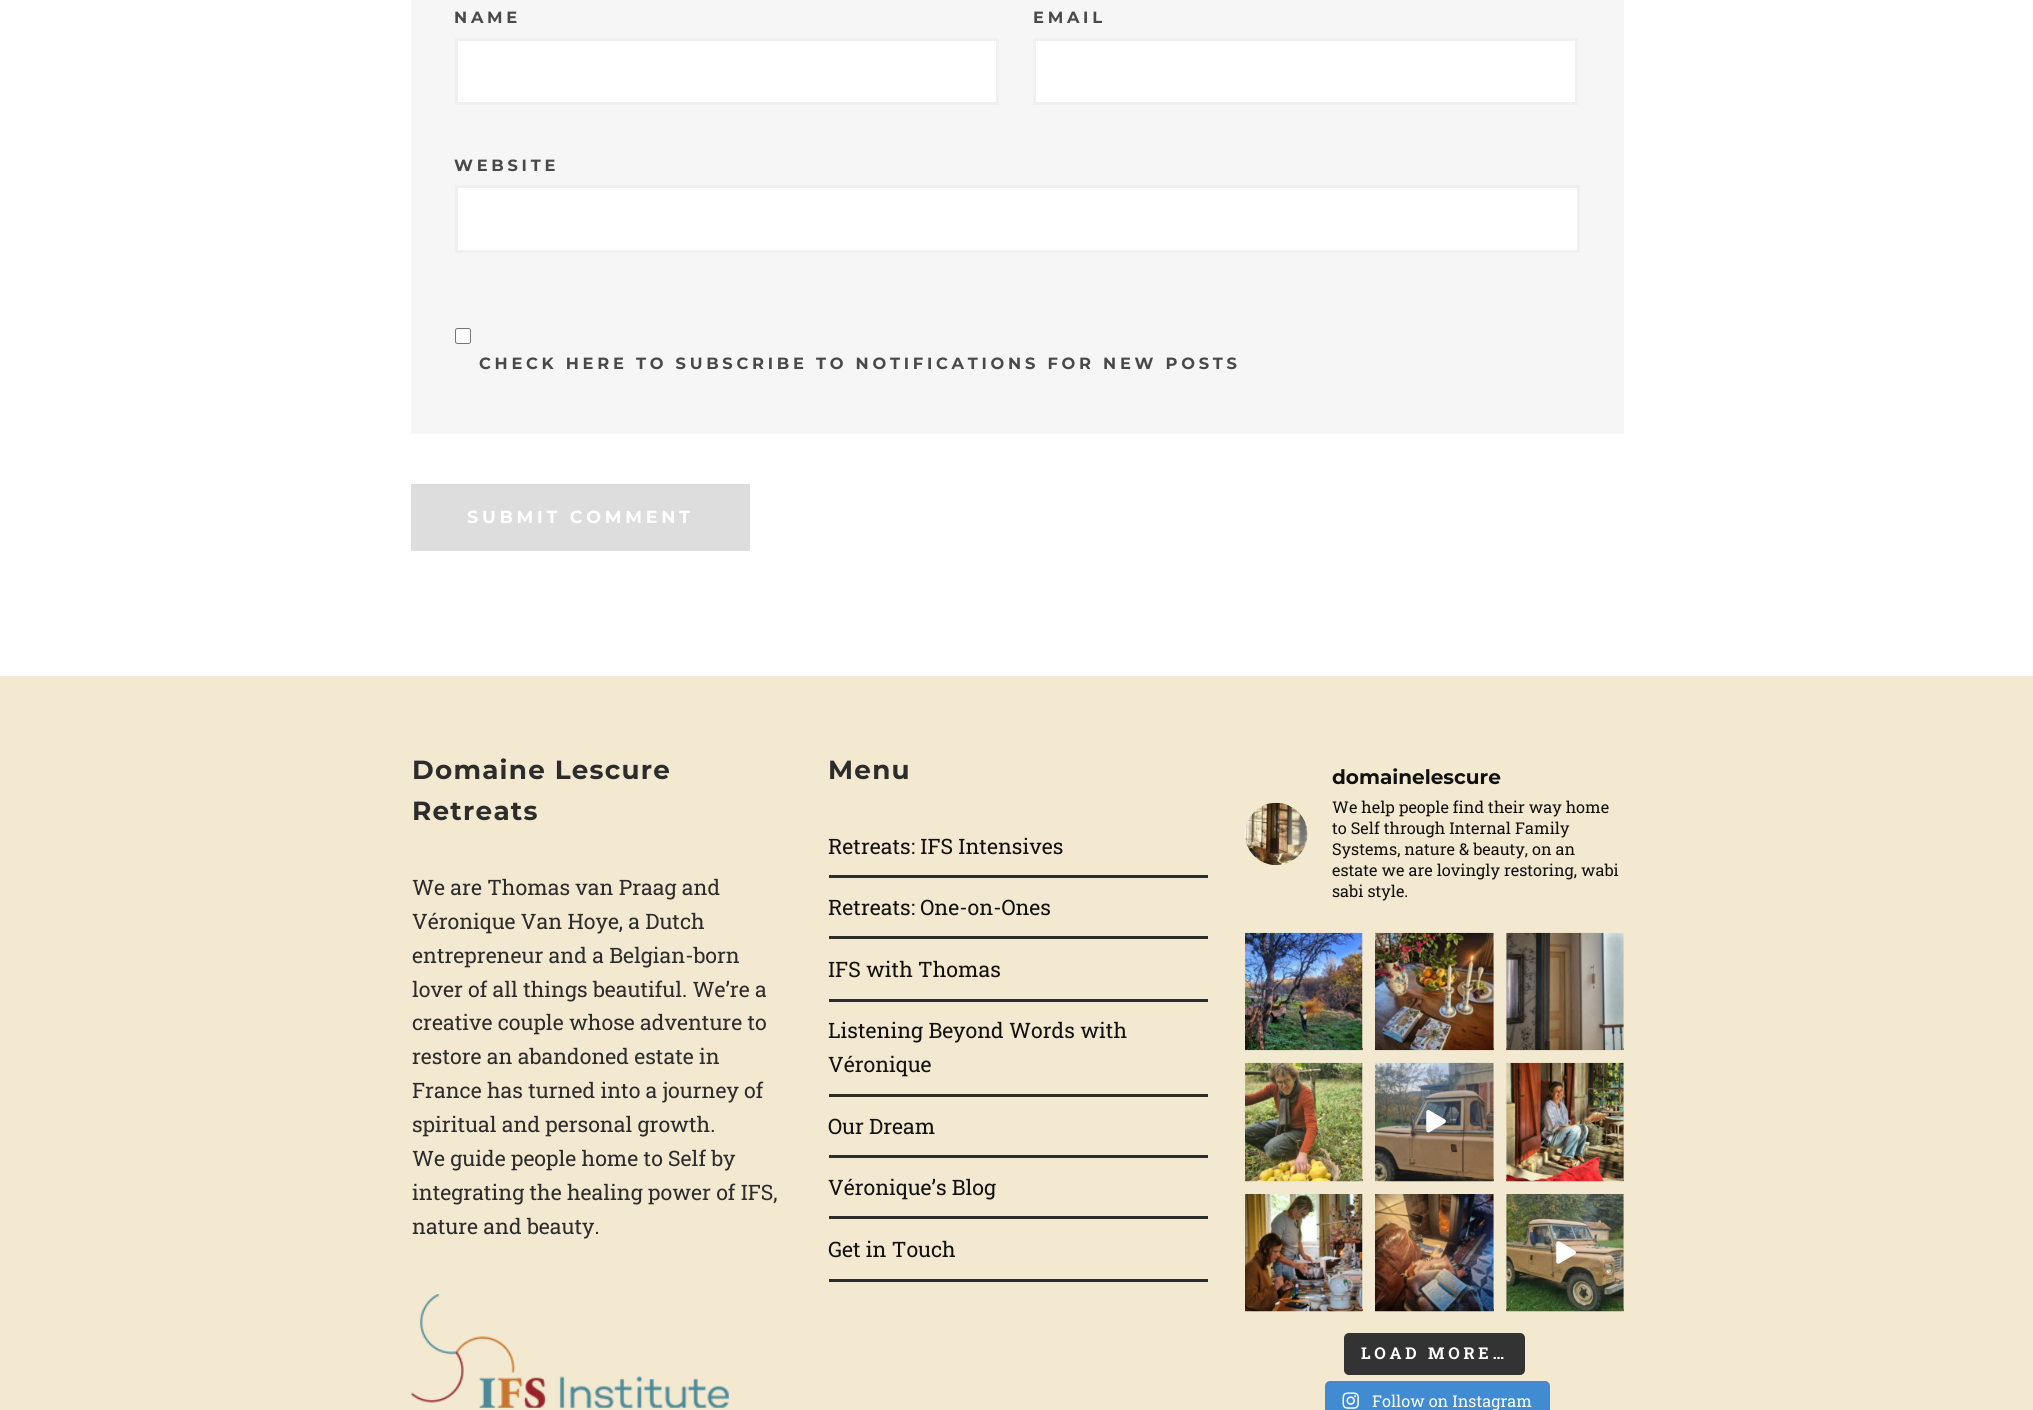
import math
import cairo

surface = cairo.ImageSurface(cairo.FORMAT_RGB24, 2033, 1410)
cr = cairo.Context(surface)
options = cairo.FontOptions()
options.set_hint_metrics(cairo.HINT_METRICS_OFF)
options.set_hint_style(cairo.HINT_STYLE_NONE)
cr.set_font_options(options)
cr.set_miter_limit(4)


def rgb(code):
    cr.set_source_rgb(*(v / 255 for v in bytes.fromhex(code[-6:])))


def tracked(x, y, s, letter, word):
    cr.move_to(x, y)
    for ch in s:
        cr.show_text(ch)
        cr.rel_move_to(letter + word * (ch == ' '), 0)


def rrect(x, y, w, h, r):
    cr.new_sub_path()
    for i, (u, v) in enumerate([(x + w - r, y + h - r), (x + r, y + h - r), (x + r, y + r), (x + w - r, y + r)]):
        cr.arc(u, v, r, i * math.pi / 2, (i + 1) * math.pi / 2)
    cr.close_path()


def image(path, x, y, w, h):
    cr.save()
    cr.set_source_surface(cairo.ImageSurface.create_from_png(path), x, y)
    cr.rectangle(x, y, w, h)
    cr.fill()
    cr.restore()


rgb("#ffffff")
cr.paint()
rgb("#f6f6f6")
cr.rectangle(411, 0, 1213, 434)
cr.fill()
rgb("#ffffff")
cr.rectangle(456.5, 39.5, 541, 64)
cr.fill_preserve()
rgb("#f0f0f0")
cr.set_line_width(3)
cr.stroke()
rgb("#ffffff")
cr.rectangle(1034.5, 39.5, 542, 64)
cr.fill_preserve()
rgb("#f0f0f0")
cr.stroke()
rgb("#ffffff")
cr.rectangle(456.5, 186.5, 1122, 65)
cr.fill_preserve()
rgb("#f0f0f0")
cr.stroke()
rgb("#ffffff")
rrect(455.5, 328.5, 15, 15, 2)
cr.fill_preserve()
rgb("#767676")
cr.set_line_width(1)
cr.stroke()
rgb("#dddddd")
rrect(411, 484, 339, 67, 1)
cr.fill()
rgb("#f2e9d0")
cr.rectangle(0, 676, 2033, 734)
cr.fill()
image("img/1.png", 411, 1294, 318, 114)
for x, y, w, h, color in [
    (829, 875, 379, 3, "#2c2c2c"),
    (829, 936, 379, 3, "#2c2c2c"),
    (829, 999, 379, 3, "#2c2c2c"),
    (829, 1094, 379, 3, "#2c2c2c"),
    (829, 1155, 379, 3, "#2c2c2c"),
    (829, 1216, 379, 3, "#2c2c2c"),
    (829, 1279, 379, 3, "#2c2c2c"),
]:
    rgb(color)
    cr.rectangle(x, y, w, h)
    cr.fill()
image("img/2.png", 1245, 802, 63, 64)
rgb("#bf3f3f")
cr.rectangle(1362, 1048, 1, 2)
cr.fill()
image("img/3.png", 1245, 932, 118, 119)
cr.rectangle(1493, 1048, 1, 2)
cr.fill()
image("img/4.png", 1375, 932, 119, 119)
cr.rectangle(1506, 1048, 118, 2)
cr.fill()
image("img/5.png", 1506, 932, 118, 119)
cr.rectangle(1362, 1179, 1, 2)
cr.fill()
image("img/6.png", 1245, 1062, 118, 120)
cr.rectangle(1493, 1179, 1, 2)
cr.fill()
image("img/7.png", 1375, 1062, 119, 120)
image("img/8.png", 1426, 1110, 20, 23)
cr.rectangle(1506, 1179, 118, 2)
cr.fill()
image("img/9.png", 1506, 1062, 118, 120)
cr.rectangle(1362, 1309, 1, 2)
cr.fill()
image("img/10.png", 1245, 1194, 118, 118)
cr.rectangle(1493, 1309, 1, 2)
cr.fill()
image("img/11.png", 1375, 1194, 119, 118)
cr.rectangle(1506, 1309, 118, 2)
cr.fill()
image("img/12.png", 1506, 1194, 118, 118)
image("img/13.png", 1556, 1241, 20, 23)
rgb("#333333")
rrect(1344, 1333, 181, 42, 5)
cr.fill()
rgb("#408bd1")
rrect(1325, 1381, 225, 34, 5)
cr.fill()
image("img/14.png", 1342, 1392, 17, 17)
cr.select_font_face("Montserrat", cairo.FONT_SLANT_NORMAL, cairo.FONT_WEIGHT_BOLD)
cr.set_font_size(16.25)
rgb("#494949")
for x, y, s in [
    (454, 23, "NAME"),
    (1033, 23, "EMAIL"),
    (454, 171, "WEBSITE"),
    (479, 369, "CHECK HERE TO SUBSCRIBE TO NOTIFICATIONS FOR NEW POSTS"),
]:
    tracked(x, y, s, 3.75, 0)
cr.set_font_size(17.5)
rgb("#ffffff")
tracked(467, 523, "SUBMIT COMMENT", 3.75, 0)
cr.set_font_size(26.25)
rgb("#2c2c2c")
tracked(412, 779, "Domaine Lescure", 1.25, 0)
tracked(412, 820, "Retreats", 1.25, 0)
cr.select_font_face("Roboto Slab")
cr.set_font_size(21.25)
for x, y, s in [
    (412, 895, "We are Thomas van Praag and"),
    (412, 929, "Véronique Van Hoye, a Dutch"),
    (412, 963, "entrepreneur and a Belgian-born"),
    (412, 997, "lover of all things beautiful. We’re a"),
    (412, 1030, "creative couple whose adventure to"),
    (412, 1064, "restore an abandoned estate in"),
    (412, 1098, "France has turned into a journey of"),
    (412, 1132, "spiritual and personal growth."),
    (412, 1166, "We guide people home to Self by"),
    (412, 1200, "integrating the healing power of IFS,"),
    (412, 1234, "nature and beauty."),
]:
    cr.move_to(x, y)
    cr.show_text(s)
cr.select_font_face("Montserrat", cairo.FONT_SLANT_NORMAL, cairo.FONT_WEIGHT_BOLD)
cr.set_font_size(26.25)
tracked(828, 779, "Menu", 1.25, 0)
cr.select_font_face("Roboto Slab")
cr.set_font_size(21.25)
rgb("#111111")
for x, y, s in [
    (828, 854, "Retreats: IFS Intensives"),
    (828, 915, "Retreats: One-on-Ones"),
    (828, 977, "IFS with Thomas"),
    (828, 1038, "Listening Beyond Words with"),
    (828, 1072, "Véronique"),
    (828, 1134, "Our Dream"),
    (828, 1195, "Véronique’s Blog"),
    (828, 1257, "Get in Touch"),
]:
    cr.move_to(x, y)
    cr.show_text(s)
cr.select_font_face("Montserrat", cairo.FONT_SLANT_NORMAL, cairo.FONT_WEIGHT_BOLD)
cr.set_font_size(20)
cr.move_to(1332, 784)
cr.show_text("domainelescure")
cr.select_font_face("Roboto Slab")
cr.set_font_size(16.25)
for x, y, s in [
    (1332, 813, "We help people find their way home"),
    (1332, 834, "to Self through Internal Family"),
    (1332, 855, "Systems, nature & beauty, on an"),
    (1332, 876, "estate we are lovingly restoring, wabi"),
    (1332, 897, "sabi style."),
]:
    cr.move_to(x, y)
    cr.show_text(s)
cr.select_font_face("Roboto Slab", cairo.FONT_SLANT_NORMAL, cairo.FONT_WEIGHT_BOLD)
rgb("#ffffff")
tracked(1361, 1359, "LOAD MORE…", 3.75, 0)
cr.select_font_face("Roboto Slab")
cr.move_to(1372, 1407)
cr.show_text("Follow on Instagram")
surface.write_to_png("page.png")
